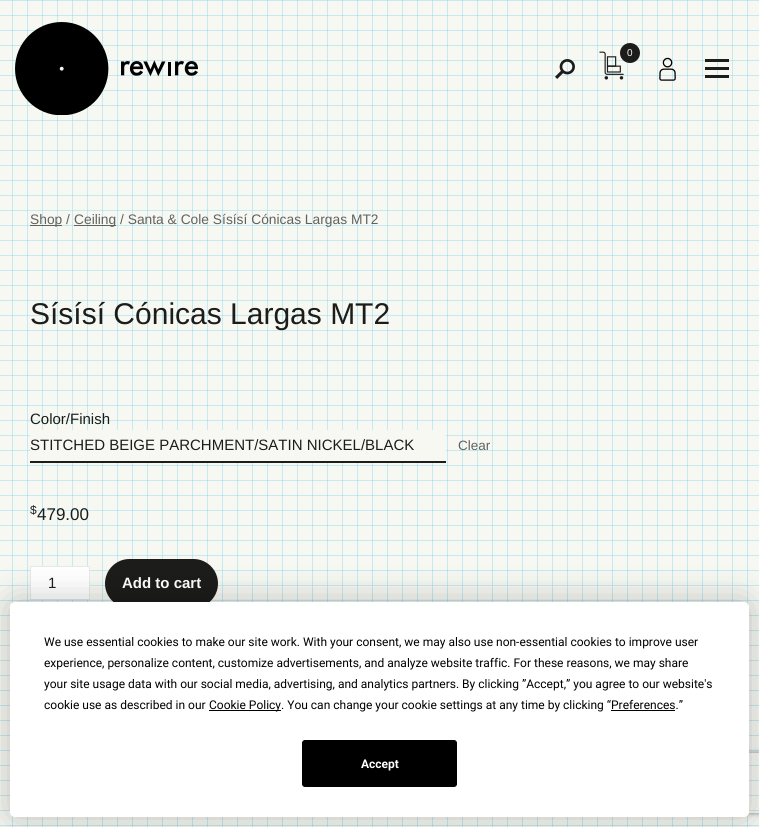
import math
import cairo

surface = cairo.ImageSurface(cairo.FORMAT_RGB24, 759, 827)
cr = cairo.Context(surface)
options = cairo.FontOptions()
options.set_hint_metrics(cairo.HINT_METRICS_OFF)
options.set_hint_style(cairo.HINT_STYLE_NONE)
cr.set_font_options(options)
cr.set_miter_limit(4)


def rgb(code):
    cr.set_source_rgb(*(v / 255 for v in bytes.fromhex(code[-6:])))


def rrect(x, y, w, h, r):
    cr.new_sub_path()
    for i, (u, v) in enumerate([(x + w - r, y + h - r), (x + r, y + h - r), (x + r, y + r), (x + w - r, y + r)]):
        cr.arc(u, v, r, i * math.pi / 2, (i + 1) * math.pi / 2)
    cr.close_path()


def soft_shadow(x, y, w, h, r, blur, alpha):
    cr.push_group_with_content(cairo.CONTENT_ALPHA)
    cr.set_operator(cairo.OPERATOR_SOURCE)
    for i in range(15, -16, -2):
        e = blur * i / 6
        if min(w, h) + 2 * e > 0:
            cr.set_source_rgba(0, 0, 0, alpha * math.erfc((i - 1) / 8.5) / 2)
            rrect(x - e, y - e, w + 2 * e, h + 2 * e, max(0, min(r + e + blur * .6, min(w, h) / 2 + e)))
            cr.fill()
    cr.mask(cr.pop_group())


def image(path, x, y, w, h):
    cr.save()
    cr.set_source_surface(cairo.ImageSurface.create_from_png(path), x, y)
    cr.rectangle(x, y, w, h)
    cr.fill()
    cr.restore()


rgb("#f8f8f3")
cr.paint()
image("img/1.png", 0, 135, 759, 691)
image("img/2.png", 12, 135, 736, 692)
for x, y, w, h, color in [
    (0, 0, 759, 1, "#c6e8f2"),
    (0, 15, 759, 1, "#c6e8f2"),
    (0, 30, 759, 1, "#c6e8f2"),
    (0, 45, 759, 1, "#c6e8f2"),
    (0, 60, 759, 1, "#c6e8f2"),
    (0, 75, 759, 1, "#c6e8f2"),
    (0, 90, 759, 1, "#c6e8f2"),
    (0, 105, 759, 1, "#c6e8f2"),
    (0, 120, 759, 1, "#c6e8f2"),
]:
    rgb(color)
    cr.rectangle(x, y, w, h)
    cr.fill()
image("img/3.png", 12, 0, 736, 135)
image("img/4.png", 15, 22, 183, 93)
image("img/5.png", 599, 51, 25, 29)
rgb("#1c1c1a")
cr.arc(630, 53, 10, 0, 2 * math.pi)
cr.fill()
image("img/6.png", 555, 59, 20, 20)
image("img/7.png", 659, 57, 17, 24)
for x, y, w, h, color in [
    (705, 59, 24, 3, "#1c1c1a"),
    (705, 67, 24, 3, "#1c1c1a"),
    (705, 75, 24, 3, "#1c1c1a"),
    (30, 225, 32, 1, "#61615e"),
    (74, 225, 42, 1, "#61615e"),
    (30, 430, 416, 31, "#f8f8f3"),
    (30, 461, 416, 2, "#1c1c1a"),
]:
    rgb(color)
    cr.rectangle(x, y, w, h)
    cr.fill()
rgb("#ffffff")
cr.rectangle(30.5, 566.5, 59, 33)
cr.fill_preserve()
rgb("#e9e9e9")
cr.set_line_width(1)
cr.stroke()
rgb("#1c1c1a")
rrect(106, 560, 111, 47, 23.5)
cr.fill_preserve()
cr.set_line_width(2)
cr.stroke()
rgb("#000000")
soft_shadow(10, 602, 739, 215, 5, 17.5, 0.25)
cr.save()
cr.set_fill_rule(cairo.FILL_RULE_EVEN_ODD)
cr.new_path()
cr.move_to(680, 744)
cr.line_to(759, 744)
cr.line_to(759, 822)
cr.line_to(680, 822)
cr.close_path()
cr.move_to(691, 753)
cr.line_to(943, 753)
cr.curve_to(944, 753, 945, 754, 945, 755)
cr.line_to(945, 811)
cr.curve_to(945, 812, 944, 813, 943, 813)
cr.line_to(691, 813)
cr.curve_to(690, 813, 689, 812, 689, 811)
cr.line_to(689, 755)
cr.curve_to(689, 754, 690, 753, 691, 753)
cr.close_path()
cr.clip()
rgb("#808080")
soft_shadow(689, 753, 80, 60, 2, 2.5, 1)
cr.restore()
rgb("#ffffff")
rrect(10, 602, 739, 215, 5)
cr.fill()
rgb("#000000")
cr.rectangle(209, 710, 72, 1)
cr.fill()
cr.rectangle(611, 710, 64, 1)
cr.fill()
rrect(302.5, 740.5, 154, 46, 2.5)
cr.fill_preserve()
cr.set_line_width(1)
cr.stroke()
cr.select_font_face("Liberation Sans")
cr.set_font_size(10)
rgb("#f8f8f3")
cr.move_to(627, 56)
cr.show_text("0")
cr.set_font_size(13.8)
rgb("#61615e")
cr.move_to(30, 224)
cr.show_text("Shop /")
cr.move_to(74, 224)
cr.show_text("Ceiling / Santa & Cole Sísísí Cónicas Largas MT2")
cr.set_font_size(30)
rgb("#1c1c1a")
cr.move_to(30, 324)
cr.show_text("Sísísí Cónicas Largas MT2")
cr.set_font_size(15)
cr.move_to(30, 424)
cr.show_text("Color/Finish")
cr.move_to(30, 450)
cr.show_text("STITCHED BEIGE PARCHMENT/SATIN NICKEL/BLACK")
cr.set_font_size(13.5)
rgb("#61615e")
cr.move_to(458, 450)
cr.show_text("Clear")
cr.set_font_size(12)
rgb("#1c1c1a")
cr.move_to(30, 514)
cr.show_text("$")
cr.set_font_size(17)
cr.move_to(37, 520)
cr.show_text("479.00")
cr.set_font_size(15)
cr.move_to(48, 588)
cr.show_text("1")
cr.select_font_face("Liberation Sans", cairo.FONT_SLANT_NORMAL, cairo.FONT_WEIGHT_BOLD)
rgb("#f8f8f3")
cr.move_to(122, 588)
cr.show_text("Add to cart")
cr.select_font_face("Roboto")
cr.set_font_size(12)
rgb("#000000")
for x, y, s in [
    (44, 646, "We use essential cookies to make our site work. With your consent, we may also use non-essential cookies to improve user"),
    (44, 667, "experience, personalize content, customize advertisements, and analyze website traffic. For these reasons, we may share"),
    (44, 688, "your site usage data with our social media, advertising, and analytics partners. By clicking ”Accept,” you agree to our website's"),
    (44, 709, "cookie use as described in our"),
    (209, 709, "Cookie Policy. You can change your cookie settings at any time by clicking “Preferences.”"),
]:
    cr.move_to(x, y)
    cr.show_text(s)
cr.select_font_face("Roboto", cairo.FONT_SLANT_NORMAL, cairo.FONT_WEIGHT_BOLD)
rgb("#ffffff")
cr.move_to(361, 768)
cr.show_text("Accept")
surface.write_to_png("page.png")
